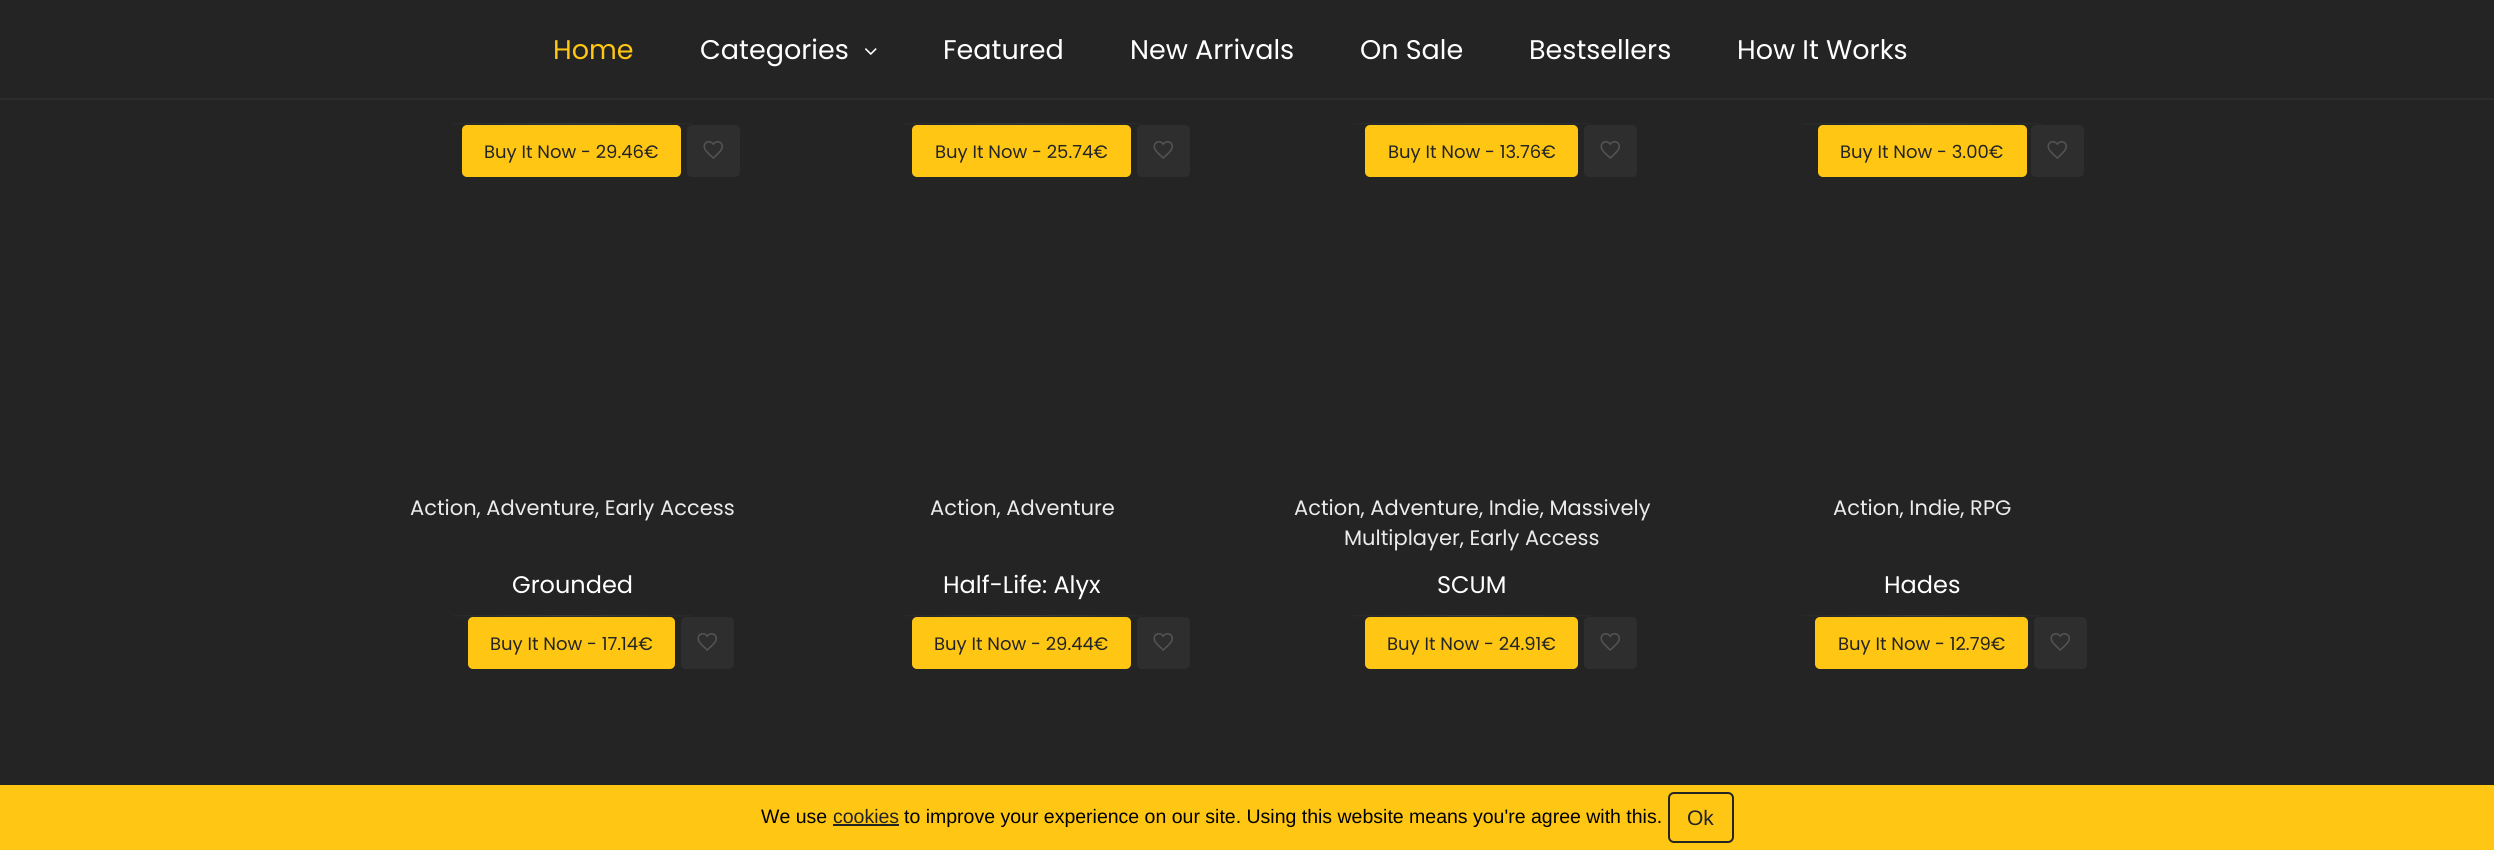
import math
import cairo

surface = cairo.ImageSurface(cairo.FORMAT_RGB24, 2494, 850)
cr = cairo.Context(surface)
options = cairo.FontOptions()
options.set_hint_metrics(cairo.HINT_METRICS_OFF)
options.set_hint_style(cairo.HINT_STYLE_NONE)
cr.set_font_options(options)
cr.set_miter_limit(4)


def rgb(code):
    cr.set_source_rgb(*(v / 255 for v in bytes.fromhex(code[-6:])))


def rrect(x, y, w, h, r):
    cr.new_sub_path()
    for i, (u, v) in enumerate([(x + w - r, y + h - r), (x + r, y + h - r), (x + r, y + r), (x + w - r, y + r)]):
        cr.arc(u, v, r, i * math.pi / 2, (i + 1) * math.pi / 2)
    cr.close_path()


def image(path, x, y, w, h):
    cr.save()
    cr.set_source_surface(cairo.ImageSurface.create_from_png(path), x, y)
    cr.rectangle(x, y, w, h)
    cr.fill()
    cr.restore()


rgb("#242424")
cr.paint()
rgb("#2d2d2d")
cr.rectangle(0, 98, 2494, 2)
cr.fill()
image("img/1.png", 865, 48, 12, 7)
image("img/2.png", 452, 123, 240, 2)
rgb("#ffc713")
rrect(462, 125, 219, 52, 5)
cr.fill()
rgb("#2e2e2e")
rrect(687, 125, 53, 52, 5)
cr.fill()
image("img/3.png", 703, 141, 20, 18)
image("img/4.png", 902, 123, 240, 2)
rgb("#ffc713")
rrect(912, 125, 219, 52, 5)
cr.fill()
rgb("#2e2e2e")
rrect(1137, 125, 53, 52, 5)
cr.fill()
image("img/3.png", 1153, 141, 20, 18)
image("img/4.png", 1352, 123, 240, 2)
rgb("#ffc713")
rrect(1365, 125, 213, 52, 5)
cr.fill()
rgb("#2e2e2e")
rrect(1584, 125, 53, 52, 5)
cr.fill()
image("img/3.png", 1600, 141, 20, 18)
image("img/4.png", 1802, 123, 240, 2)
rgb("#ffc713")
rrect(1818, 125, 209, 52, 5)
cr.fill()
rgb("#2e2e2e")
rrect(2031, 125, 53, 52, 5)
cr.fill()
image("img/3.png", 2047, 141, 20, 18)
image("img/2.png", 452, 615, 240, 2)
rgb("#ffc713")
rrect(468, 617, 207, 52, 5)
cr.fill()
rgb("#2e2e2e")
rrect(681, 617, 53, 52, 5)
cr.fill()
image("img/3.png", 697, 633, 20, 18)
image("img/4.png", 902, 615, 240, 2)
rgb("#ffc713")
rrect(912, 617, 219, 52, 5)
cr.fill()
rgb("#2e2e2e")
rrect(1137, 617, 53, 52, 5)
cr.fill()
image("img/3.png", 1153, 633, 20, 18)
image("img/4.png", 1352, 615, 240, 2)
rgb("#ffc713")
rrect(1365, 617, 213, 52, 5)
cr.fill()
rgb("#2e2e2e")
rrect(1584, 617, 53, 52, 5)
cr.fill()
image("img/3.png", 1600, 633, 20, 18)
image("img/4.png", 1802, 615, 240, 2)
rgb("#ffc713")
rrect(1815, 617, 213, 52, 5)
cr.fill()
rgb("#2e2e2e")
rrect(2034, 617, 53, 52, 5)
cr.fill()
image("img/3.png", 2050, 633, 20, 18)
rgb("#ffc713")
cr.rectangle(0, 785, 2494, 65)
cr.fill()
rgb("#242424")
cr.rectangle(833, 824, 66, 2)
cr.fill()
rrect(1669, 793, 64, 49, 5)
cr.stroke()
cr.select_font_face("Poppins")
cr.set_font_size(27)
rgb("#ffc713")
cr.move_to(553, 59)
cr.show_text("Home")
rgb("#ffffff")
for x, y, s in [
    (700, 59, "Categories"),
    (943, 59, "Featured"),
    (1130, 59, "New Arrivals"),
    (1360, 59, "On Sale"),
    (1529, 59, "Bestsellers"),
    (1737, 59, "How It Works"),
]:
    cr.move_to(x, y)
    cr.show_text(s)
cr.set_font_size(18)
rgb("#242424")
for x, y, s in [
    (484, 158, "Buy It Now - 29.46€"),
    (935, 158, "Buy It Now - 25.74€"),
    (1388, 158, "Buy It Now - 13.76€"),
    (1840, 158, "Buy It Now - 3.00€"),
]:
    cr.move_to(x, y)
    cr.show_text(s)
cr.set_font_size(21)
rgb("#ebebeb")
cr.move_to(410, 515)
cr.show_text("Action, Adventure, Early Access")
cr.set_font_size(24)
rgb("#ffffff")
cr.move_to(512, 593)
cr.show_text("Grounded")
cr.set_font_size(18)
rgb("#242424")
cr.move_to(490, 650)
cr.show_text("Buy It Now - 17.14€")
cr.set_font_size(21)
rgb("#ebebeb")
cr.move_to(930, 515)
cr.show_text("Action, Adventure")
cr.set_font_size(24)
rgb("#ffffff")
cr.move_to(943, 593)
cr.show_text("Half-Life: Alyx")
cr.set_font_size(18)
rgb("#242424")
cr.move_to(934, 650)
cr.show_text("Buy It Now - 29.44€")
cr.set_font_size(21)
rgb("#ebebeb")
cr.move_to(1294, 515)
cr.show_text("Action, Adventure, Indie, Massively")
cr.move_to(1344, 545)
cr.show_text("Multiplayer, Early Access")
cr.set_font_size(24)
rgb("#ffffff")
cr.move_to(1437, 593)
cr.show_text("SCUM")
cr.set_font_size(18)
rgb("#242424")
cr.move_to(1387, 650)
cr.show_text("Buy It Now - 24.91€")
cr.set_font_size(21)
rgb("#ebebeb")
cr.move_to(1833, 515)
cr.show_text("Action, Indie, RPG")
cr.set_font_size(24)
rgb("#ffffff")
cr.move_to(1884, 593)
cr.show_text("Hades")
cr.set_font_size(18)
rgb("#242424")
cr.move_to(1838, 650)
cr.show_text("Buy It Now - 12.79€")
cr.select_font_face("Liberation Sans")
cr.set_font_size(19.5)
rgb("#000000")
cr.move_to(761, 823)
cr.show_text("We use")
rgb("#242424")
cr.move_to(833, 823)
cr.show_text("cookies")
rgb("#000000")
cr.move_to(904, 823)
cr.show_text("to improve your experience on our site. Using this website means you're agree with this.")
cr.set_font_size(21)
rgb("#242424")
cr.move_to(1687, 825)
cr.show_text("Ok")
surface.write_to_png("page.png")
